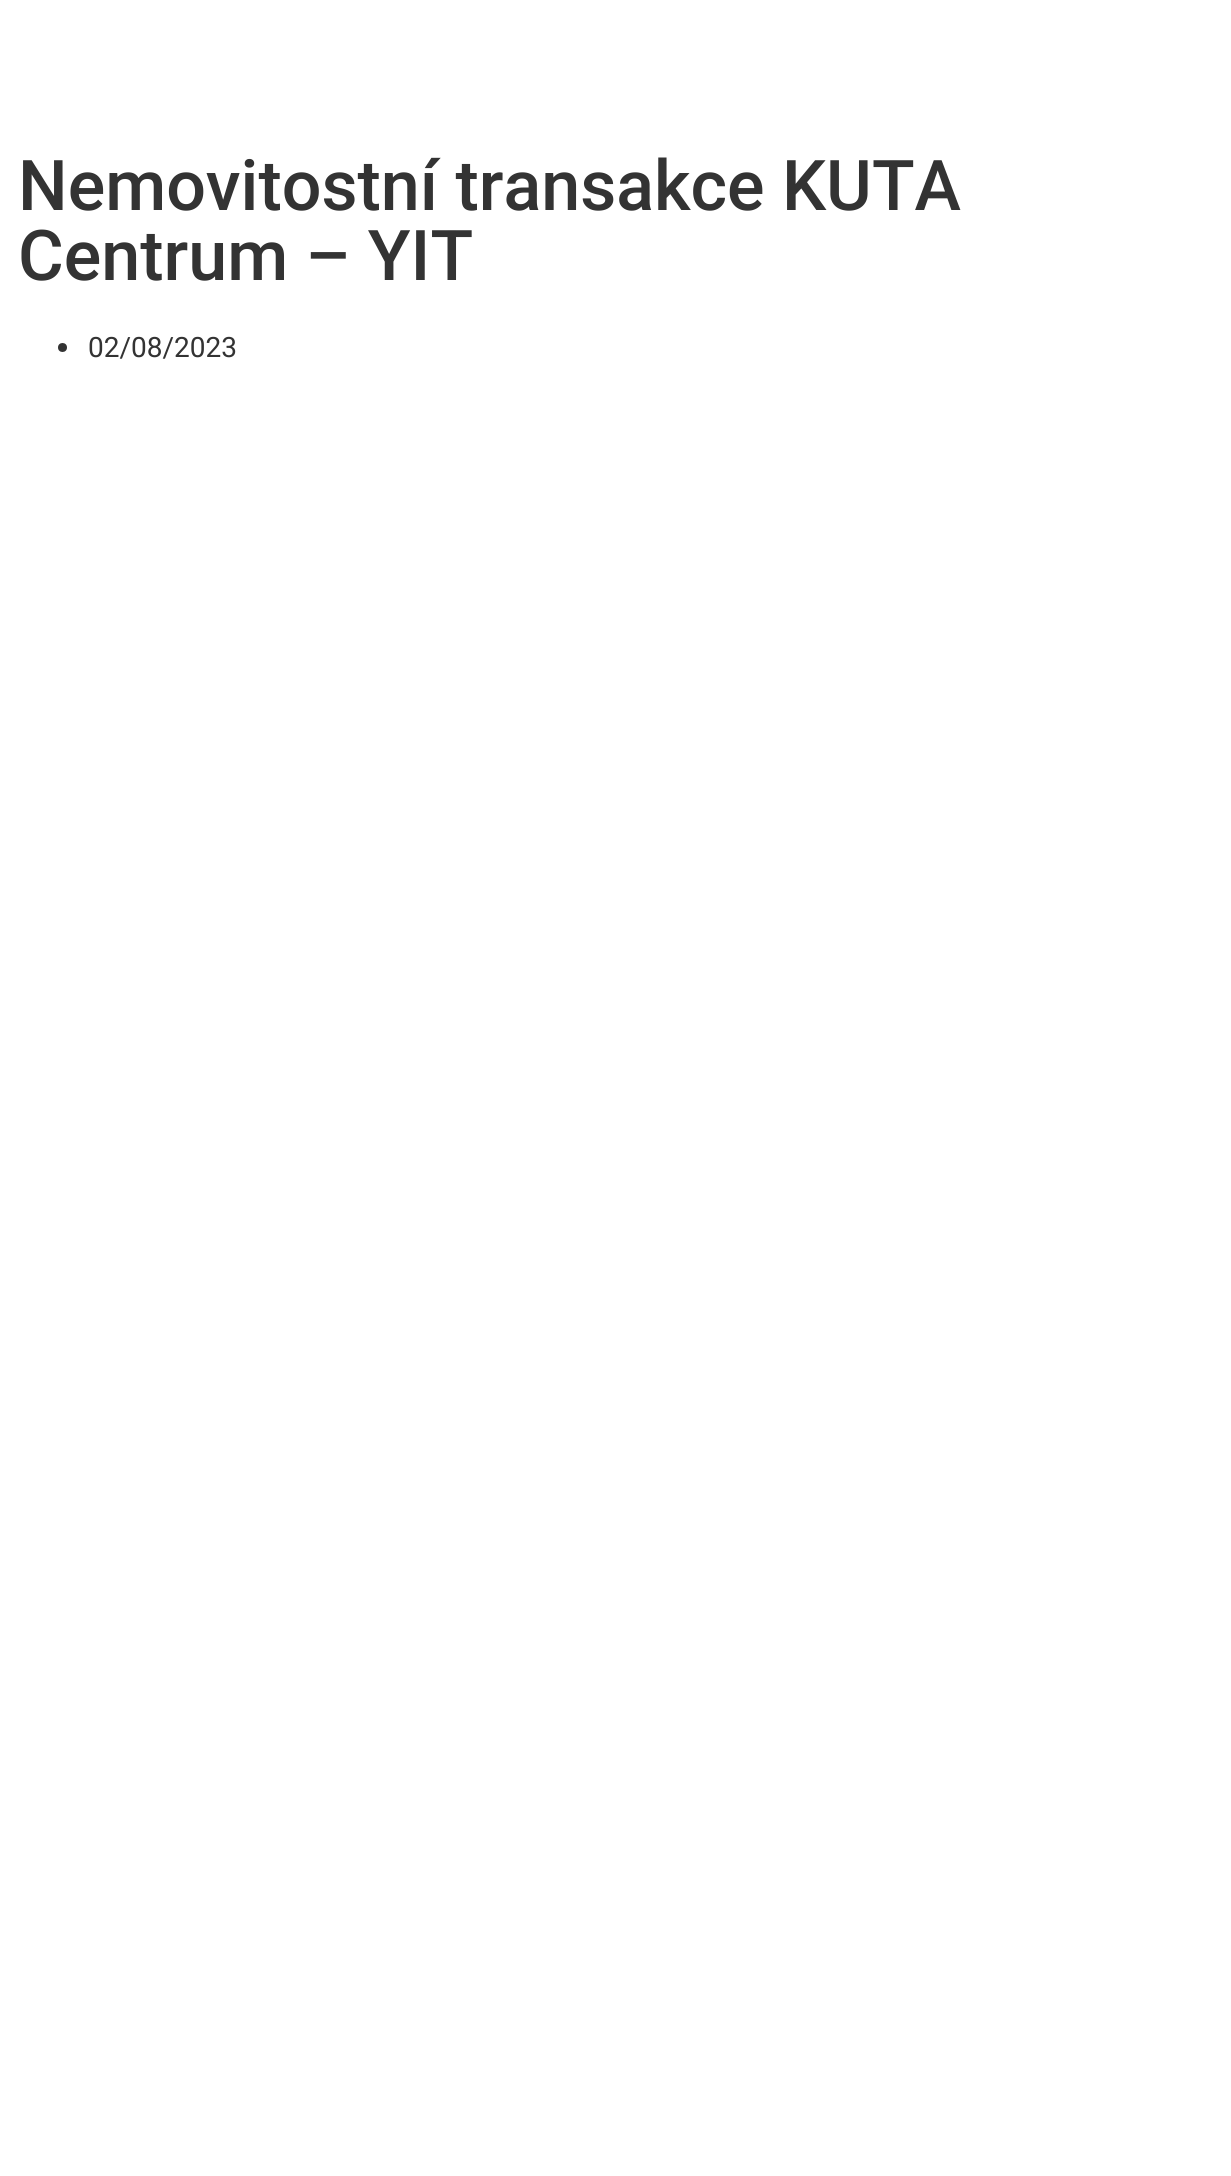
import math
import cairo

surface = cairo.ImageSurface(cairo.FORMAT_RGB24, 1231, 2176)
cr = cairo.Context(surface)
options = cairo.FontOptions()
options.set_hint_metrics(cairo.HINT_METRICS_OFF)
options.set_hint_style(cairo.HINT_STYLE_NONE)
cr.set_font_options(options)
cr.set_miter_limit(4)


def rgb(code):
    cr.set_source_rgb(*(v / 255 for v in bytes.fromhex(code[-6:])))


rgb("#ffffff")
cr.paint()
rgb("#333333")
cr.arc(62.5, 347.5, 4.5, 0, 2 * math.pi)
cr.fill()
cr.select_font_face("Roboto Medium")
cr.set_font_size(70)
cr.move_to(18, 210)
cr.show_text("Nemovitostní transakce KUTA")
cr.move_to(18, 280)
cr.show_text("Centrum – YIT")
cr.select_font_face("Roboto")
cr.set_font_size(28)
cr.move_to(88, 357)
cr.show_text("02/08/2023")
surface.write_to_png("page.png")
